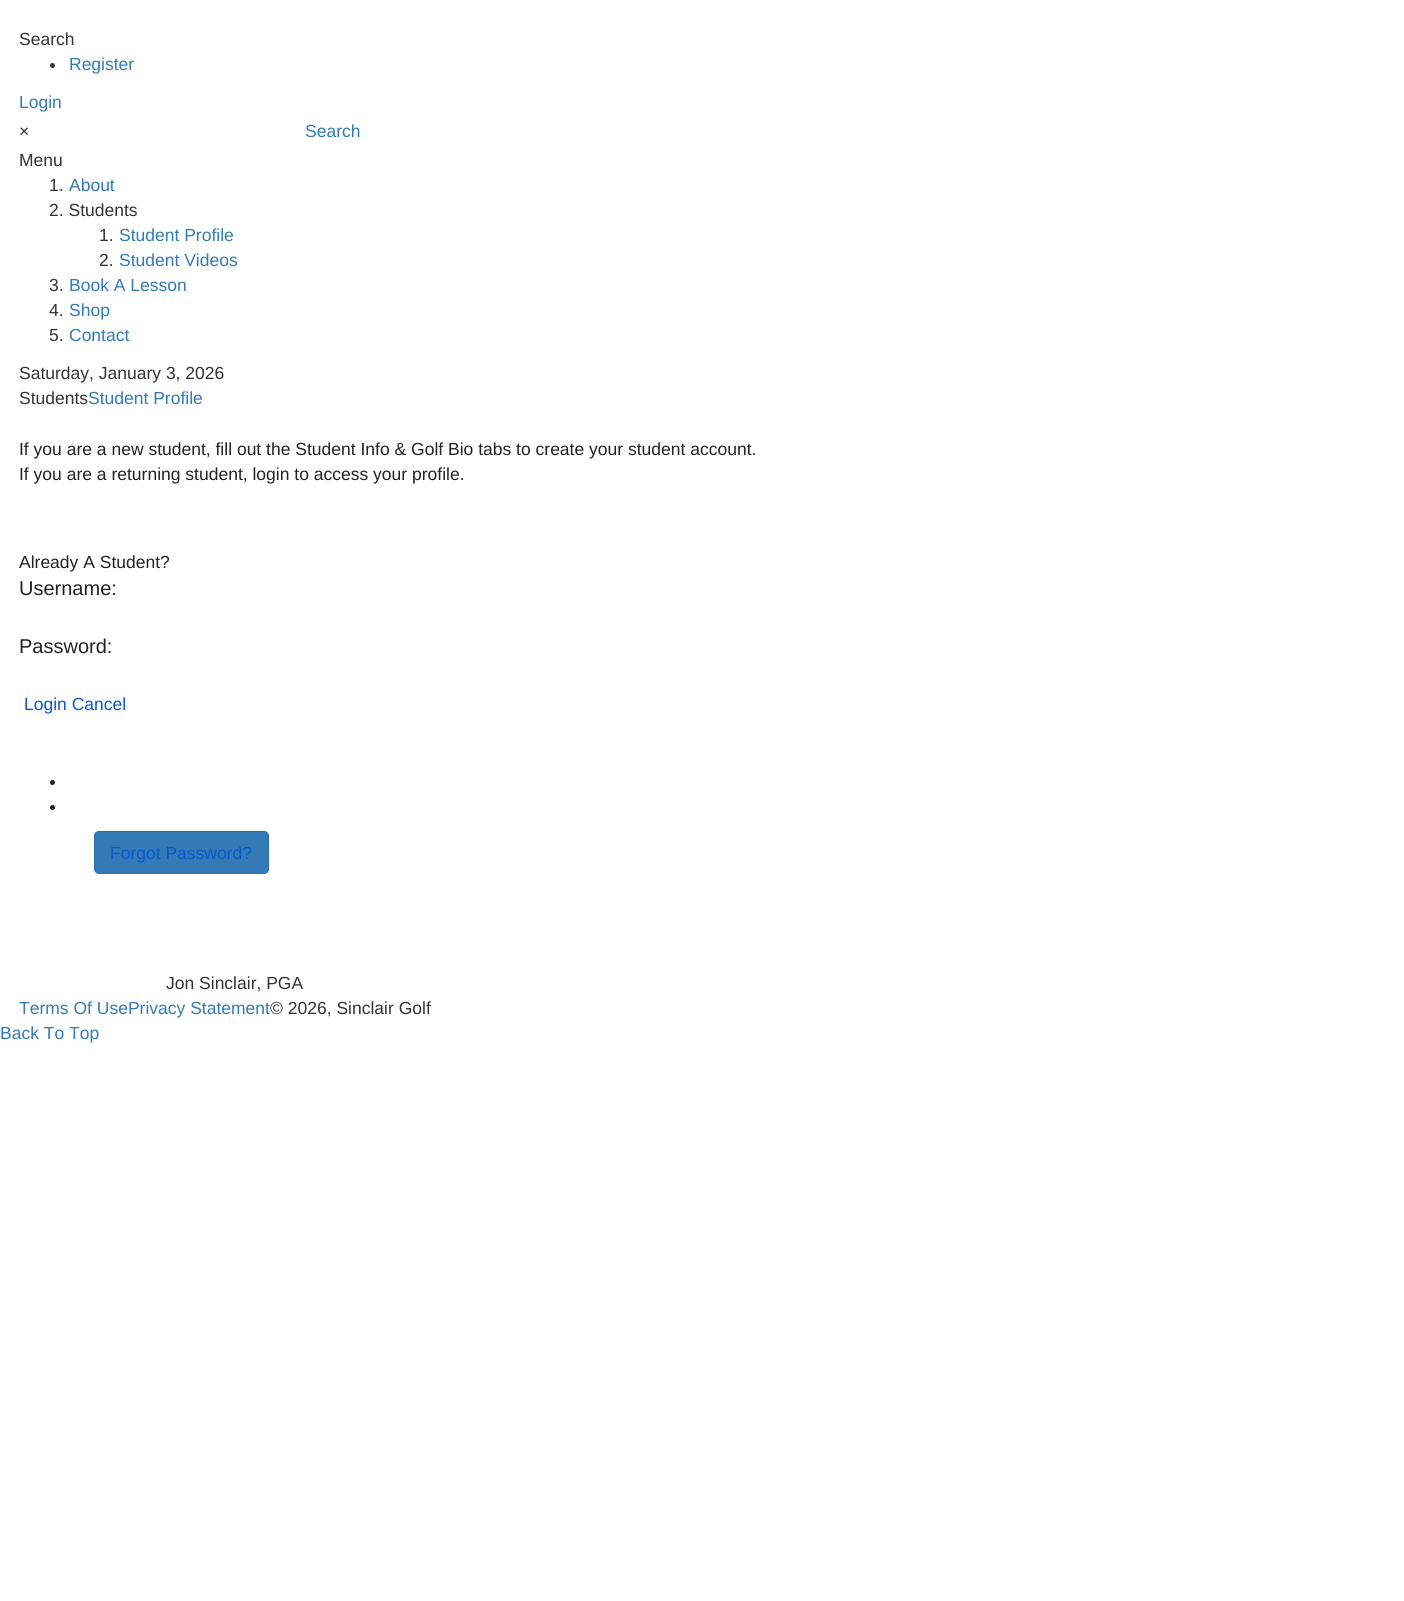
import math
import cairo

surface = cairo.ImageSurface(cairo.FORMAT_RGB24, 1404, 1601)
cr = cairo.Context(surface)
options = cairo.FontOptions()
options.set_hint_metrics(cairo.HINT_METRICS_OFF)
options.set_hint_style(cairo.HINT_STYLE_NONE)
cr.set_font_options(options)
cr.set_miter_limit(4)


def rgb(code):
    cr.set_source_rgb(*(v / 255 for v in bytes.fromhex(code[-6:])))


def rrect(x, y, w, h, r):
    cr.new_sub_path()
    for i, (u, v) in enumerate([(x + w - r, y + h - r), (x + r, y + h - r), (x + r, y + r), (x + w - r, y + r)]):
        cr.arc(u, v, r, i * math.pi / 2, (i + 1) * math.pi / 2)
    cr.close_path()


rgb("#ffffff")
cr.paint()
rgb("#333333")
cr.arc(52.5, 65.5, 2.5, 0, 2 * math.pi)
cr.fill()
rgb("#222222")
cr.arc(52.5, 782.5, 2.5, 0, 2 * math.pi)
cr.fill()
cr.arc(52.5, 807.5, 2.5, 0, 2 * math.pi)
cr.fill()
rgb("#337ab7")
rrect(94.5, 831.5, 174, 42, 4.5)
cr.fill_preserve()
rgb("#2e6da4")
cr.set_line_width(1)
cr.stroke()
cr.select_font_face("Liberation Sans")
cr.set_font_size(17.5)
rgb("#333333")
cr.move_to(19, 45)
cr.show_text("Search")
rgb("#337ab7")
cr.move_to(69, 70)
cr.show_text("Register")
cr.move_to(19, 108)
cr.show_text("Login")
rgb("#333333")
cr.move_to(19, 137)
cr.show_text("×")
rgb("#337ab7")
cr.move_to(305, 137)
cr.show_text("Search")
rgb("#333333")
cr.move_to(19, 166)
cr.show_text("Menu")
cr.move_to(49, 191)
cr.show_text("1.")
rgb("#337ab7")
cr.move_to(69, 191)
cr.show_text("About")
rgb("#333333")
cr.move_to(49, 216)
cr.show_text("2. Students")
cr.move_to(99, 241)
cr.show_text("1.")
rgb("#337ab7")
cr.move_to(119, 241)
cr.show_text("Student Profile")
rgb("#333333")
cr.move_to(99, 266)
cr.show_text("2.")
rgb("#337ab7")
cr.move_to(119, 266)
cr.show_text("Student Videos")
rgb("#333333")
cr.move_to(49, 291)
cr.show_text("3.")
rgb("#337ab7")
cr.move_to(69, 291)
cr.show_text("Book A Lesson")
rgb("#333333")
cr.move_to(49, 316)
cr.show_text("4.")
rgb("#337ab7")
cr.move_to(69, 316)
cr.show_text("Shop")
rgb("#333333")
cr.move_to(49, 341)
cr.show_text("5.")
rgb("#337ab7")
cr.move_to(69, 341)
cr.show_text("Contact")
rgb("#333333")
cr.move_to(19, 379)
cr.show_text("Saturday, January 3, 2026")
cr.move_to(19, 404)
cr.show_text("Students")
rgb("#337ab7")
cr.move_to(88, 404)
cr.show_text("Student Profile")
rgb("#222222")
for x, y, s in [
    (19, 455, "If you are a new student, fill out the Student Info & Golf Bio tabs to create your student account."),
    (19, 480, "If you are a returning student, login to access your profile."),
    (19, 568, "Already A Student?"),
]:
    cr.move_to(x, y)
    cr.show_text(s)
cr.set_font_size(20)
cr.move_to(19, 595)
cr.show_text("Username:")
cr.move_to(19, 653)
cr.show_text("Password:")
cr.set_font_size(17.5)
rgb("#0a58ca")
cr.move_to(24, 710)
cr.show_text("Login Cancel")
cr.move_to(110, 859)
cr.show_text("Forgot Password?")
rgb("#333333")
cr.move_to(166, 989)
cr.show_text("Jon Sinclair, PGA")
rgb("#337ab7")
cr.move_to(19, 1014)
cr.show_text("Terms Of UsePrivacy Statement")
rgb("#333333")
cr.move_to(270, 1014)
cr.show_text("© 2026, Sinclair Golf")
rgb("#337ab7")
cr.move_to(0, 1039)
cr.show_text("Back To Top")
surface.write_to_png("page.png")
